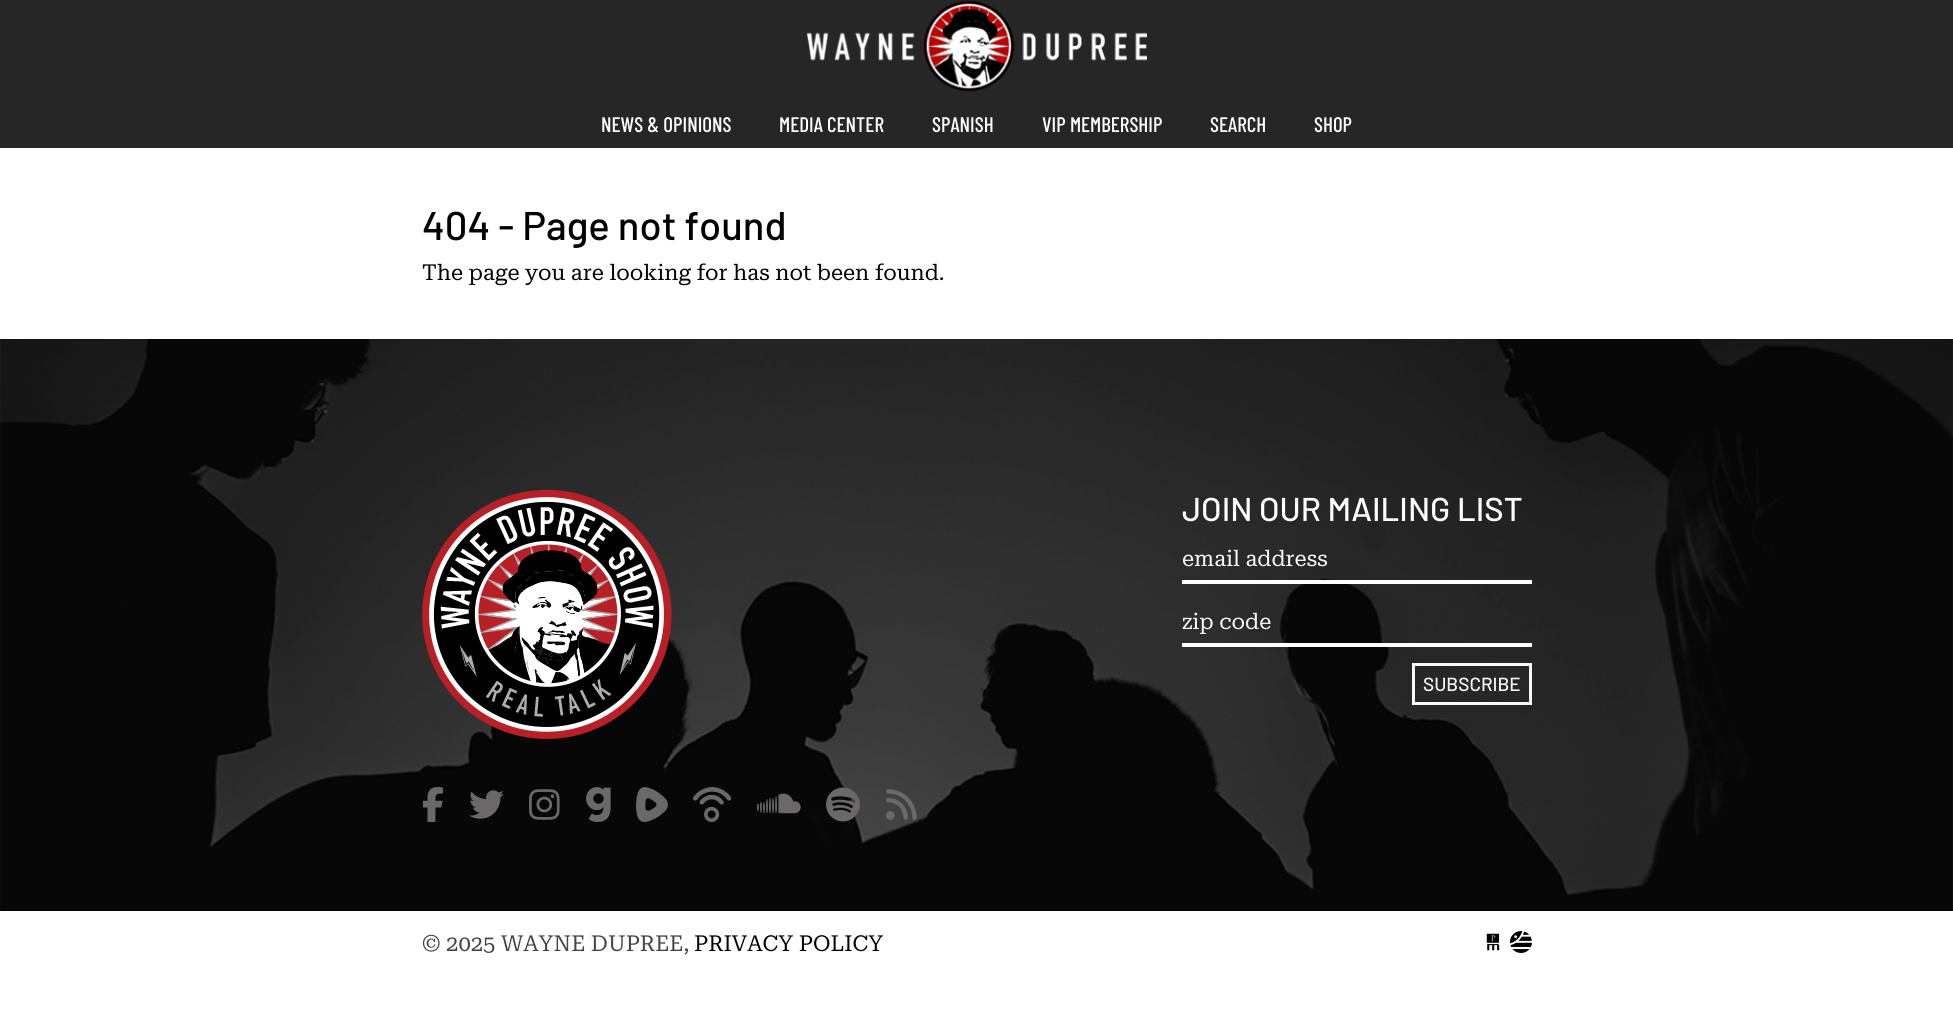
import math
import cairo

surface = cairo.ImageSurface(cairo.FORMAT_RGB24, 1953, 1021)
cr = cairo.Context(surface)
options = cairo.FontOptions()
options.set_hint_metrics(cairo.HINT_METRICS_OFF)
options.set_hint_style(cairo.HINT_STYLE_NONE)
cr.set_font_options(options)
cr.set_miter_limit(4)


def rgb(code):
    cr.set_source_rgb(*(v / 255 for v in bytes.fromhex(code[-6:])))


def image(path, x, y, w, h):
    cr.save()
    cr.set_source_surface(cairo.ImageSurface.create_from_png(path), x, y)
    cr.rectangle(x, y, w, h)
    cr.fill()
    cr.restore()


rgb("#ffffff")
cr.paint()
rgb("#262626")
cr.rectangle(0, 0, 1953, 148)
cr.fill()
image("img/1.png", 807, 0, 340, 92)
image("img/2.png", 0, 339, 1953, 572)
image("img/3.png", 422, 489, 250, 250)
image("img/4.png", 422, 787, 21, 35)
image("img/5.png", 469, 790, 35, 29)
image("img/6.png", 529, 789, 31, 31)
image("img/7.png", 586, 787, 25, 35)
image("img/8.png", 636, 787, 32, 35)
image("img/9.png", 693, 787, 39, 35)
image("img/10.png", 757, 793, 44, 21)
image("img/11.png", 826, 787, 34, 35)
image("img/12.png", 886, 789, 31, 31)
rgb("#ffffff")
cr.rectangle(1182, 580, 350, 4)
cr.fill()
cr.rectangle(1182, 643, 350, 4)
cr.fill()
cr.rectangle(1413.5, 664.5, 117, 39)
rgb("#f8f9fa")
cr.set_line_width(3)
cr.stroke()
image("img/13.png", 1486, 933, 14, 18)
image("img/14.png", 1510, 931, 22, 22)
cr.select_font_face("Barlow Condensed Medium")
cr.set_font_size(21)
rgb("#ffffff")
for x, y, s in [
    (601, 132, "NEWS & OPINIONS"),
    (779, 132, "MEDIA CENTER"),
    (932, 132, "SPANISH"),
    (1042, 132, "VIP MEMBERSHIP"),
    (1210, 132, "SEARCH"),
    (1314, 132, "SHOP"),
]:
    cr.move_to(x, y)
    cr.show_text(s)
cr.select_font_face("Barlow Medium")
cr.set_font_size(40)
rgb("#000000")
cr.move_to(422, 240)
cr.show_text("404 - Page not found")
cr.select_font_face("Roboto Serif")
cr.set_font_size(22)
cr.move_to(422, 280)
cr.show_text("The page you are looking for has not been found.")
cr.select_font_face("Barlow Medium")
cr.set_font_size(33)
rgb("#ffffff")
cr.move_to(1182, 521)
cr.show_text("JOIN OUR MAILING LIST")
cr.select_font_face("Roboto Serif")
cr.set_font_size(22)
cr.move_to(1182, 566)
cr.show_text("email address")
cr.move_to(1182, 629)
cr.show_text("zip code")
cr.select_font_face("Barlow Medium")
cr.set_font_size(19)
rgb("#f8f9fa")
cr.move_to(1423, 691)
cr.show_text("SUBSCRIBE")
cr.select_font_face("Roboto Serif")
cr.set_font_size(22)
rgb("#444444")
cr.move_to(422, 951)
cr.show_text("© 2025 WAYNE DUPREE,")
rgb("#000000")
cr.move_to(694, 951)
cr.show_text("PRIVACY POLICY")
surface.write_to_png("page.png")
